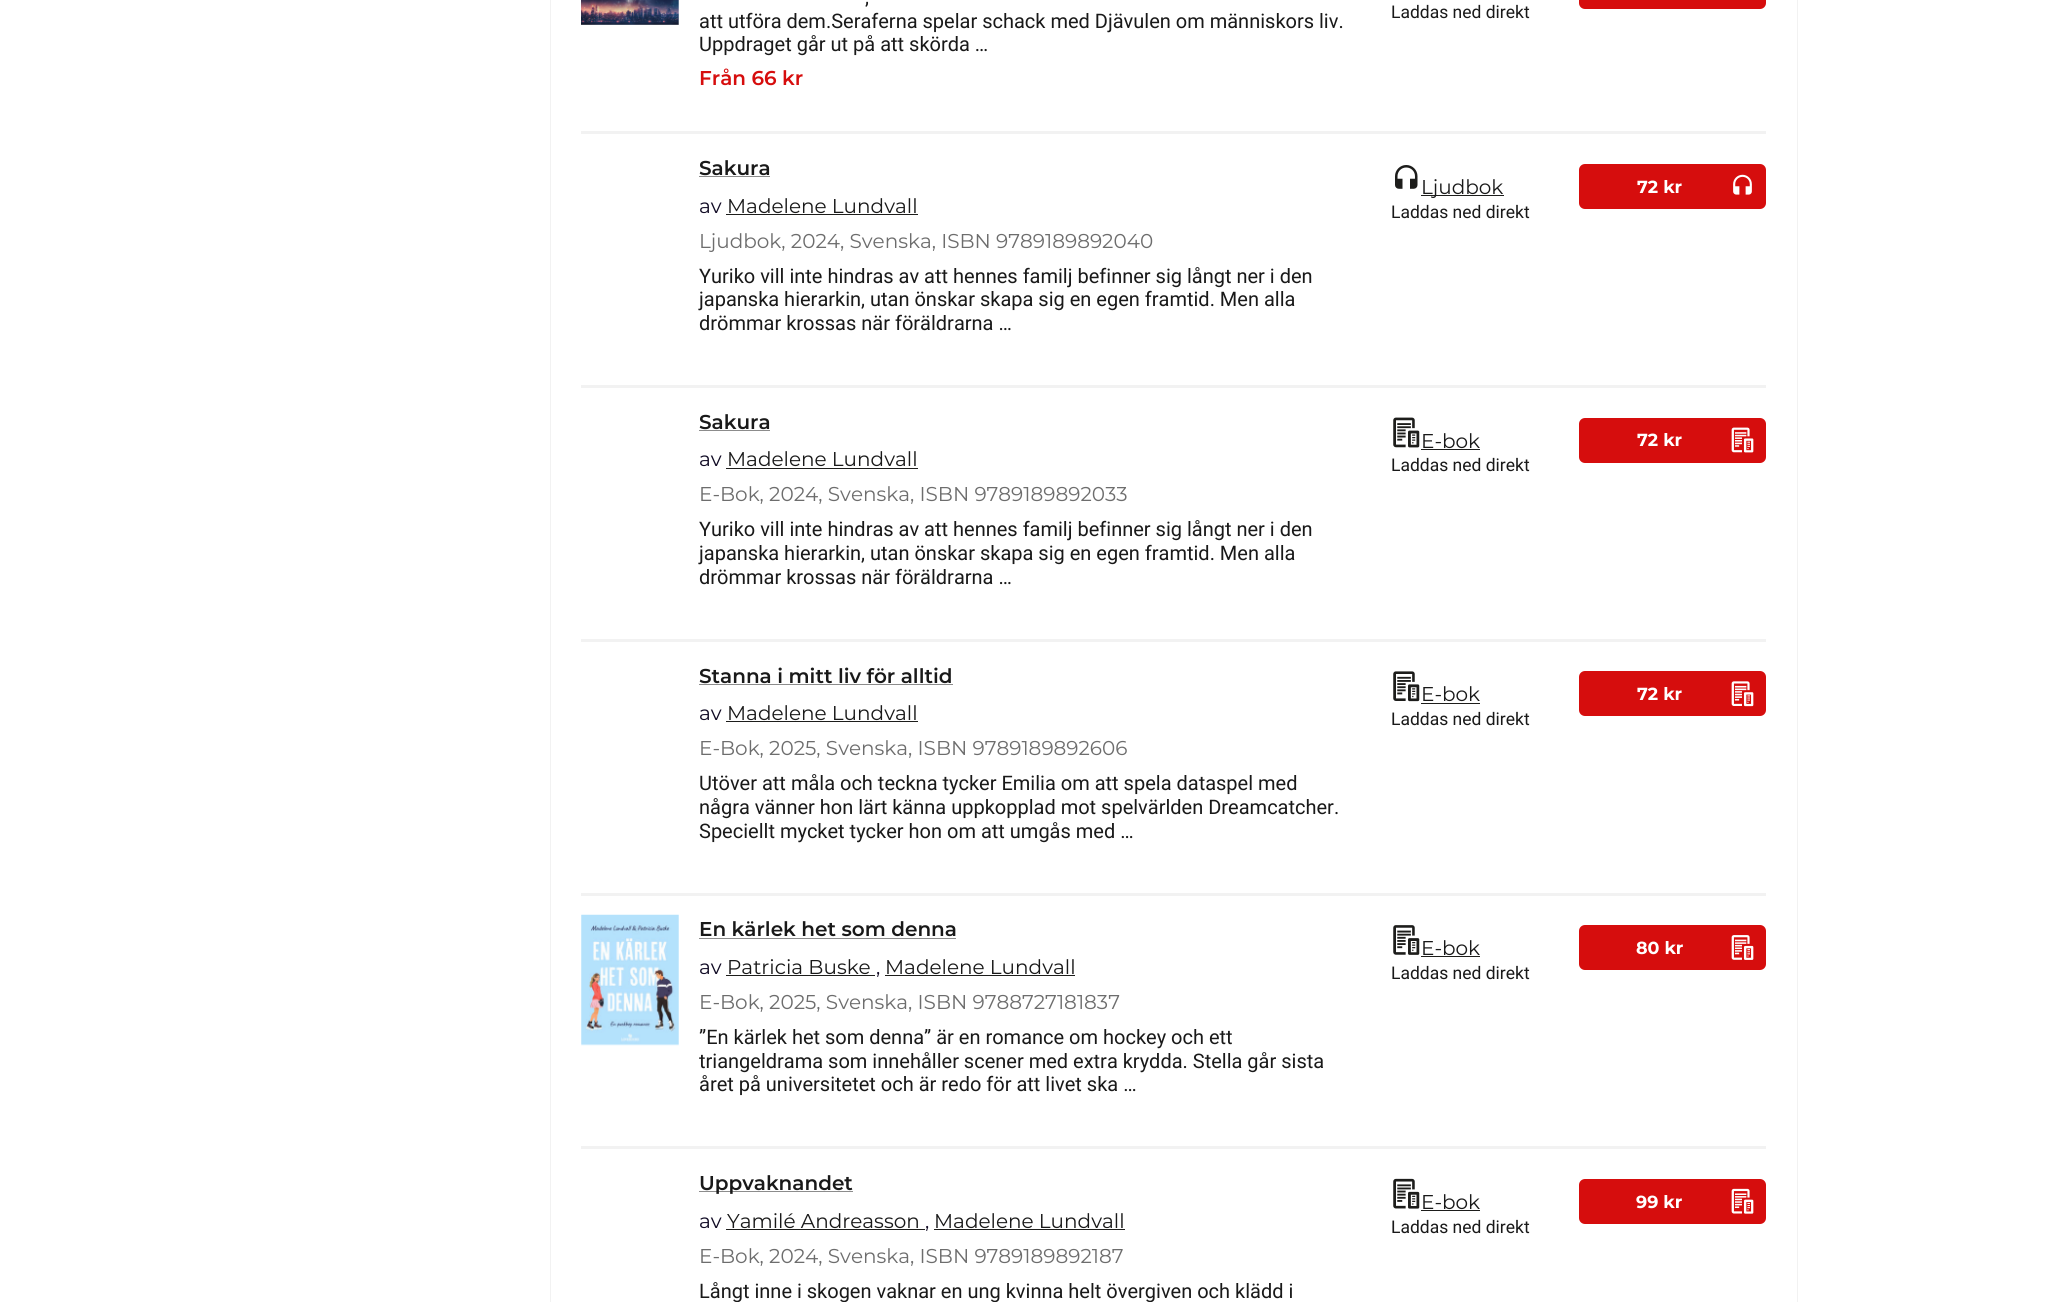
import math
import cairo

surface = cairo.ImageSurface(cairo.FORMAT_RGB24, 2054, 1302)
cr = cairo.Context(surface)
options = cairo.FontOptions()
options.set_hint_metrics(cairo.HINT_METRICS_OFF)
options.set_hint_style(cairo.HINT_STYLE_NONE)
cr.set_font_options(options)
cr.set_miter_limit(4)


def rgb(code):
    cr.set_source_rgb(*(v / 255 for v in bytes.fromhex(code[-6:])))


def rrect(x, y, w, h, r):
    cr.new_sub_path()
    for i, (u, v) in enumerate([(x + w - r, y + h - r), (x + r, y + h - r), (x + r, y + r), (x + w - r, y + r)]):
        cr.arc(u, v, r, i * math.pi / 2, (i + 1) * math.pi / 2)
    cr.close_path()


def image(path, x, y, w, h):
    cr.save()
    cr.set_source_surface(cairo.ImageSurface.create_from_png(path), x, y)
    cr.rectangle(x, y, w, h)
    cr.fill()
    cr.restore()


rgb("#ffffff")
cr.paint()
cr.rectangle(550.5, -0.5, 1247, 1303)
rgb("#f2f2f2")
cr.set_line_width(1)
cr.stroke()
image("img/1.png", 581, 0, 98, 25)
rgb("#d60d0d")
rrect(1579, -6, 187, 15, 6)
cr.fill()
for x, y, w, h, color in [
    (581, 131, 1185, 3, "#f2f2f2"),
    (699, 176, 71, 1, "#8c8c8c"),
    (726, 214, 192, 1, "#1d1d1b"),
]:
    rgb(color)
    cr.rectangle(x, y, w, h)
    cr.fill()
image("img/2.png", 1395, 165, 23, 24)
cr.rectangle(1421, 195, 83, 1)
cr.fill()
rgb("#d60d0d")
rrect(1579, 164, 187, 45, 6)
cr.fill()
image("img/3.png", 1733, 174, 19, 21)
for x, y, w, h, color in [
    (581, 385, 1185, 3, "#f2f2f2"),
    (699, 430, 71, 1, "#8c8c8c"),
    (726, 468, 192, 1, "#1d1d1b"),
]:
    rgb(color)
    cr.rectangle(x, y, w, h)
    cr.fill()
image("img/4.png", 1393, 417, 27, 31)
cr.rectangle(1421, 449, 59, 1)
cr.fill()
rgb("#d60d0d")
rrect(1579, 418, 187, 45, 6)
cr.fill()
image("img/5.png", 1731, 427, 23, 26)
for x, y, w, h, color in [
    (581, 639, 1185, 3, "#f2f2f2"),
    (699, 684, 254, 1, "#8c8c8c"),
    (726, 721, 192, 1, "#1d1d1b"),
]:
    rgb(color)
    cr.rectangle(x, y, w, h)
    cr.fill()
image("img/6.png", 1393, 671, 27, 31)
cr.rectangle(1421, 703, 59, 1)
cr.fill()
rgb("#d60d0d")
rrect(1579, 671, 187, 45, 6)
cr.fill()
image("img/7.png", 1731, 681, 23, 26)
rgb("#f2f2f2")
cr.rectangle(581, 893, 1185, 3)
cr.fill()
image("img/8.png", 581, 914, 98, 132)
for x, y, w, h, color in [
    (699, 938, 257, 1, "#8c8c8c"),
    (726, 975, 149, 1, "#1d1d1b"),
    (885, 975, 190, 1, "#1d1d1b"),
]:
    rgb(color)
    cr.rectangle(x, y, w, h)
    cr.fill()
image("img/9.png", 1393, 925, 27, 30)
cr.rectangle(1421, 956, 59, 1)
cr.fill()
rgb("#d60d0d")
rrect(1579, 925, 187, 45, 6)
cr.fill()
image("img/10.png", 1731, 935, 23, 25)
for x, y, w, h, color in [
    (581, 1146, 1185, 3, "#f2f2f2"),
    (699, 1191, 154, 1, "#8c8c8c"),
    (726, 1229, 199, 1, "#1d1d1b"),
    (934, 1229, 191, 1, "#1d1d1b"),
]:
    rgb(color)
    cr.rectangle(x, y, w, h)
    cr.fill()
image("img/11.png", 1393, 1178, 27, 31)
cr.rectangle(1421, 1210, 59, 1)
cr.fill()
rgb("#d60d0d")
rrect(1579, 1179, 187, 45, 6)
cr.fill()
image("img/12.png", 1731, 1188, 23, 26)
cr.select_font_face("Roboto")
cr.set_font_size(20)
rgb("#191919")
for x, y, s in [
    (865, 4, ","),
    (699, 28, "att utföra dem.Seraferna spelar schack med Djävulen om människors liv."),
    (699, 51, "Uppdraget går ut på att skörda …"),
]:
    cr.move_to(x, y)
    cr.show_text(s)
cr.select_font_face("Montserrat SemiBold")
rgb("#d60d0d")
cr.move_to(699, 85)
cr.show_text("Från 66 kr")
cr.select_font_face("Roboto")
cr.set_font_size(17.5)
rgb("#191919")
cr.move_to(1391, 18)
cr.show_text("Laddas ned direkt")
cr.select_font_face("Montserrat SemiBold")
cr.set_font_size(20)
cr.move_to(699, 175)
cr.show_text("Sakura")
cr.select_font_face("Montserrat")
rgb("#100a24")
cr.move_to(699, 213)
cr.show_text("av")
rgb("#191919")
cr.move_to(727, 213)
cr.show_text("Madelene Lundvall")
rgb("#6d6d6d")
cr.move_to(699, 248)
cr.show_text("Ljudbok, 2024, Svenska, ISBN 9789189892040")
cr.select_font_face("Roboto")
rgb("#191919")
for x, y, s in [
    (699, 283, "Yuriko vill inte hindras av att hennes familj befinner sig långt ner i den"),
    (699, 306, "japanska hierarkin, utan önskar skapa sig en egen framtid. Men alla"),
    (699, 330, "drömmar krossas när föräldrarna …"),
]:
    cr.move_to(x, y)
    cr.show_text(s)
cr.select_font_face("Montserrat")
cr.move_to(1421, 194)
cr.show_text("Ljudbok")
cr.select_font_face("Roboto")
cr.set_font_size(17.5)
cr.move_to(1391, 218)
cr.show_text("Laddas ned direkt")
cr.select_font_face("Montserrat", cairo.FONT_SLANT_NORMAL, cairo.FONT_WEIGHT_BOLD)
rgb("#ffffff")
cr.move_to(1637, 193)
cr.show_text("72 kr")
cr.select_font_face("Montserrat SemiBold")
cr.set_font_size(20)
rgb("#191919")
cr.move_to(699, 429)
cr.show_text("Sakura")
cr.select_font_face("Montserrat")
rgb("#100a24")
cr.move_to(699, 466)
cr.show_text("av")
rgb("#191919")
cr.move_to(727, 466)
cr.show_text("Madelene Lundvall")
rgb("#6d6d6d")
cr.move_to(699, 501)
cr.show_text("E-Bok, 2024, Svenska, ISBN 9789189892033")
cr.select_font_face("Roboto")
rgb("#191919")
for x, y, s in [
    (699, 536, "Yuriko vill inte hindras av att hennes familj befinner sig långt ner i den"),
    (699, 560, "japanska hierarkin, utan önskar skapa sig en egen framtid. Men alla"),
    (699, 584, "drömmar krossas när föräldrarna …"),
]:
    cr.move_to(x, y)
    cr.show_text(s)
cr.select_font_face("Montserrat")
cr.move_to(1421, 448)
cr.show_text("E-bok")
cr.select_font_face("Roboto")
cr.set_font_size(17.5)
cr.move_to(1391, 471)
cr.show_text("Laddas ned direkt")
cr.select_font_face("Montserrat", cairo.FONT_SLANT_NORMAL, cairo.FONT_WEIGHT_BOLD)
rgb("#ffffff")
cr.move_to(1637, 446)
cr.show_text("72 kr")
cr.select_font_face("Montserrat SemiBold")
cr.set_font_size(20)
rgb("#191919")
cr.move_to(699, 683)
cr.show_text("Stanna i mitt liv för alltid")
cr.select_font_face("Montserrat")
rgb("#100a24")
cr.move_to(699, 720)
cr.show_text("av")
rgb("#191919")
cr.move_to(727, 720)
cr.show_text("Madelene Lundvall")
rgb("#6d6d6d")
cr.move_to(699, 755)
cr.show_text("E-Bok, 2025, Svenska, ISBN 9789189892606")
cr.select_font_face("Roboto")
rgb("#191919")
for x, y, s in [
    (699, 790, "Utöver att måla och teckna tycker Emilia om att spela dataspel med"),
    (699, 814, "några vänner hon lärt känna uppkopplad mot spelvärlden Dreamcatcher."),
    (699, 838, "Speciellt mycket tycker hon om att umgås med …"),
]:
    cr.move_to(x, y)
    cr.show_text(s)
cr.select_font_face("Montserrat")
cr.move_to(1421, 701)
cr.show_text("E-bok")
cr.select_font_face("Roboto")
cr.set_font_size(17.5)
cr.move_to(1391, 725)
cr.show_text("Laddas ned direkt")
cr.select_font_face("Montserrat", cairo.FONT_SLANT_NORMAL, cairo.FONT_WEIGHT_BOLD)
rgb("#ffffff")
cr.move_to(1637, 700)
cr.show_text("72 kr")
cr.select_font_face("Montserrat SemiBold")
cr.set_font_size(20)
rgb("#191919")
cr.move_to(699, 936)
cr.show_text("En kärlek het som denna")
cr.select_font_face("Montserrat")
rgb("#100a24")
cr.move_to(699, 974)
cr.show_text("av")
rgb("#191919")
cr.move_to(727, 974)
cr.show_text("Patricia Buske")
rgb("#100a24")
cr.move_to(876, 974)
cr.show_text(",")
rgb("#191919")
cr.move_to(885, 974)
cr.show_text("Madelene Lundvall")
rgb("#6d6d6d")
cr.move_to(699, 1009)
cr.show_text("E-Bok, 2025, Svenska, ISBN 9788727181837")
cr.select_font_face("Roboto")
rgb("#191919")
for x, y, s in [
    (699, 1044, "”En kärlek het som denna” är en romance om hockey och ett"),
    (699, 1068, "triangeldrama som innehåller scener med extra krydda. Stella går sista"),
    (699, 1091, "året på universitetet och är redo för att livet ska …"),
]:
    cr.move_to(x, y)
    cr.show_text(s)
cr.select_font_face("Montserrat")
cr.move_to(1421, 955)
cr.show_text("E-bok")
cr.select_font_face("Roboto")
cr.set_font_size(17.5)
cr.move_to(1391, 979)
cr.show_text("Laddas ned direkt")
cr.select_font_face("Montserrat", cairo.FONT_SLANT_NORMAL, cairo.FONT_WEIGHT_BOLD)
rgb("#ffffff")
cr.move_to(1636, 954)
cr.show_text("80 kr")
cr.select_font_face("Montserrat SemiBold")
cr.set_font_size(20)
rgb("#191919")
cr.move_to(699, 1190)
cr.show_text("Uppvaknandet")
cr.select_font_face("Montserrat")
rgb("#100a24")
cr.move_to(699, 1228)
cr.show_text("av")
rgb("#191919")
cr.move_to(727, 1228)
cr.show_text("Yamilé Andreasson")
rgb("#100a24")
cr.move_to(925, 1228)
cr.show_text(",")
rgb("#191919")
cr.move_to(934, 1228)
cr.show_text("Madelene Lundvall")
rgb("#6d6d6d")
cr.move_to(699, 1263)
cr.show_text("E-Bok, 2024, Svenska, ISBN 9789189892187")
cr.select_font_face("Roboto")
rgb("#191919")
cr.move_to(699, 1298)
cr.show_text("Långt inne i skogen vaknar en ung kvinna helt övergiven och klädd i")
cr.select_font_face("Montserrat")
cr.move_to(1421, 1209)
cr.show_text("E-bok")
cr.select_font_face("Roboto")
cr.set_font_size(17.5)
cr.move_to(1391, 1233)
cr.show_text("Laddas ned direkt")
cr.select_font_face("Montserrat", cairo.FONT_SLANT_NORMAL, cairo.FONT_WEIGHT_BOLD)
rgb("#ffffff")
cr.move_to(1636, 1208)
cr.show_text("99 kr")
surface.write_to_png("page.png")
